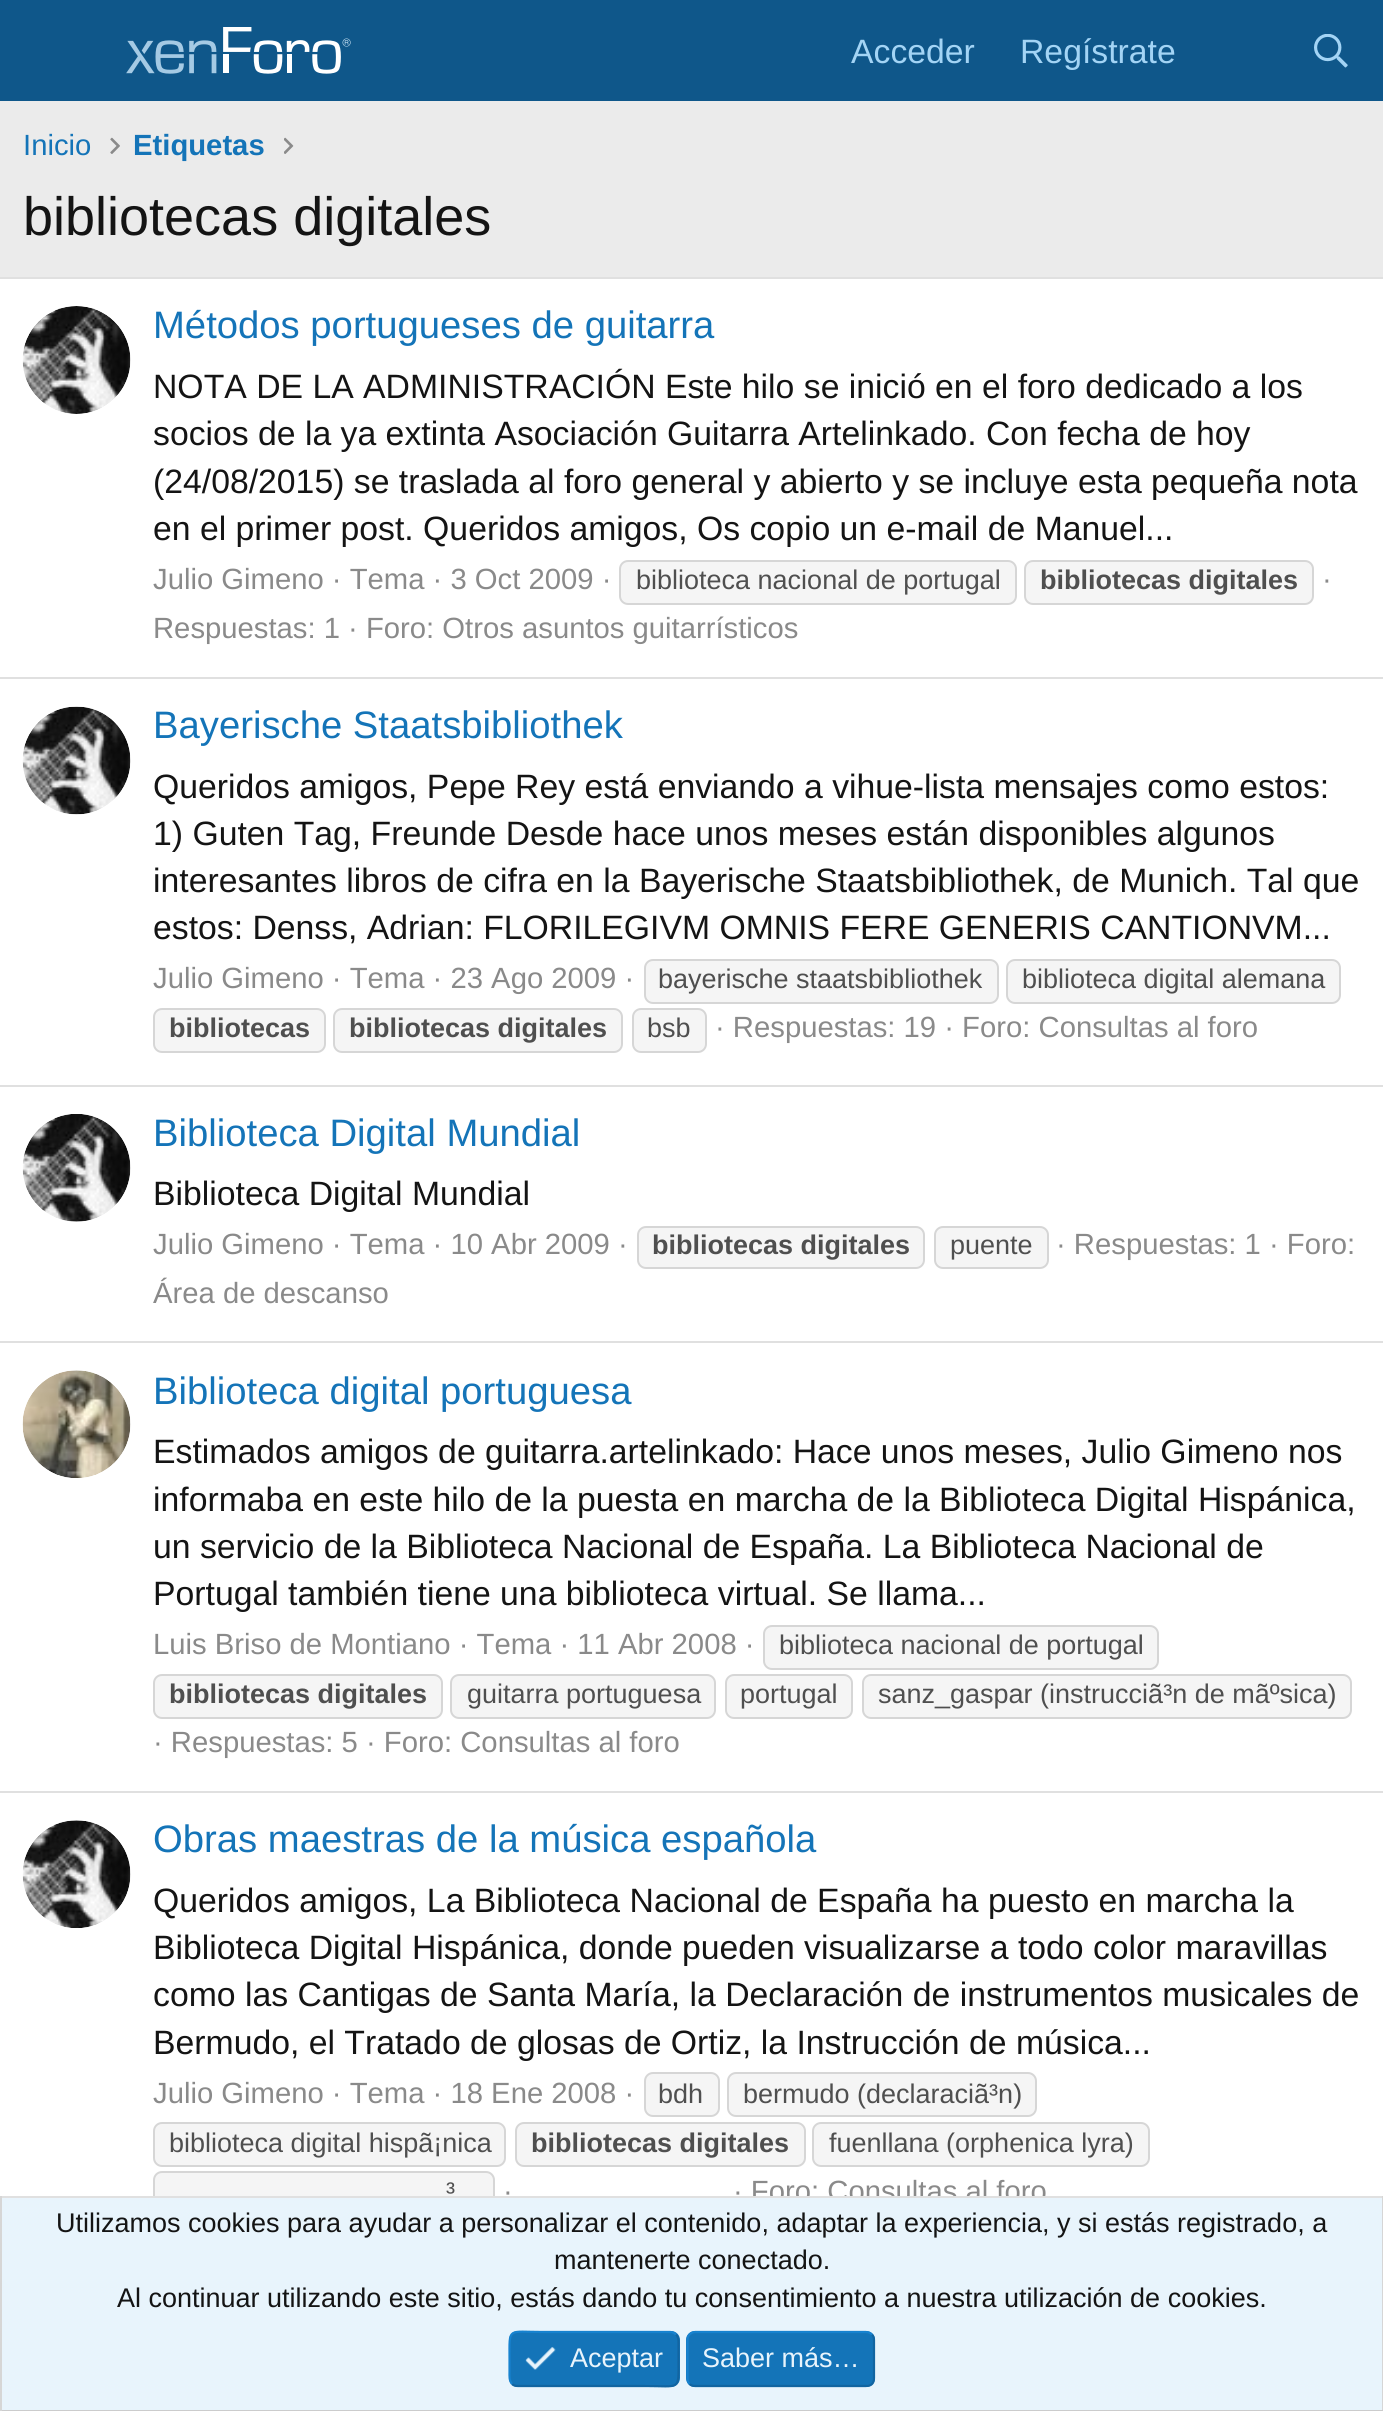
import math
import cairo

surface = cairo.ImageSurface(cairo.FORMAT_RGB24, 1383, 2411)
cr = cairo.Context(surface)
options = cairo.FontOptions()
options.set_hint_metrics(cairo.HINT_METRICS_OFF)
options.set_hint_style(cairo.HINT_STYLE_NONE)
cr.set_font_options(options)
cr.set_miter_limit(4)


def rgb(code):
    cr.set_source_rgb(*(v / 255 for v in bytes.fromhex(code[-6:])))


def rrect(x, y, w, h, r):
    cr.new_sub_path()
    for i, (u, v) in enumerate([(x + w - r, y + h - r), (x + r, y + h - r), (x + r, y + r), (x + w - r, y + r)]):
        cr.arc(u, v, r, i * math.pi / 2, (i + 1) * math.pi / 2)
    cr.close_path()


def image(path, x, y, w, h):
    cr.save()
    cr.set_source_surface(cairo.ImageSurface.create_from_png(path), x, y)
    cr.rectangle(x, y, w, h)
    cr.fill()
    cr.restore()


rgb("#ebebeb")
cr.paint()
rgb("#0f578a")
cr.rectangle(0, 0, 1383, 101)
cr.fill()
image("img/1.png", 126, 27, 225, 47)
image("img/2.png", 1314, 34, 34, 34)
image("img/3.png", 110, 137, 10, 17)
image("img/4.png", 284, 137, 10, 17)
rgb("#ffffff")
cr.rectangle(0, 279, 1383, 1917)
cr.fill()
rgb("#e0e0e0")
cr.rectangle(0, 277, 1383, 2)
cr.fill()
image("img/5.png", 22, 306, 109, 108)
rgb("#f5f5f5")
rrect(620, 561, 396, 43, 8)
cr.fill_preserve()
rgb("#d6d6d6")
cr.stroke()
rgb("#f5f5f5")
rrect(1025, 561, 288, 43, 8)
cr.fill_preserve()
rgb("#d6d6d6")
cr.stroke()
rgb("#e0e0e0")
cr.rectangle(0, 677, 1383, 2)
cr.fill()
image("img/6.png", 22, 706, 109, 109)
rgb("#f5f5f5")
rrect(645, 960, 353, 43, 8)
cr.fill_preserve()
rgb("#d6d6d6")
cr.stroke()
rgb("#f5f5f5")
rrect(1007, 960, 333, 43, 8)
cr.fill_preserve()
rgb("#d6d6d6")
cr.stroke()
rgb("#f5f5f5")
rrect(154, 1009, 171, 43, 8)
cr.fill_preserve()
rgb("#d6d6d6")
cr.stroke()
rgb("#f5f5f5")
rrect(334, 1009, 288, 43, 8)
cr.fill_preserve()
rgb("#d6d6d6")
cr.stroke()
rgb("#f5f5f5")
rrect(633, 1009, 73, 43, 8)
cr.fill_preserve()
rgb("#d6d6d6")
cr.stroke()
rgb("#e0e0e0")
cr.rectangle(0, 1085, 1383, 2)
cr.fill()
image("img/7.png", 22, 1114, 109, 108)
rgb("#f5f5f5")
rrect(638, 1227, 286, 41, 8)
cr.fill_preserve()
rgb("#d6d6d6")
cr.stroke()
rgb("#f5f5f5")
rrect(935, 1227, 113, 41, 8)
cr.fill_preserve()
rgb("#d6d6d6")
cr.stroke()
rgb("#e0e0e0")
cr.rectangle(0, 1341, 1383, 2)
cr.fill()
image("img/8.png", 22, 1370, 109, 108)
rgb("#f5f5f5")
rrect(764, 1626, 394, 43, 8)
cr.fill_preserve()
rgb("#d6d6d6")
cr.stroke()
rgb("#f5f5f5")
rrect(154, 1675, 288, 43, 8)
cr.fill_preserve()
rgb("#d6d6d6")
cr.stroke()
rgb("#f5f5f5")
rrect(451, 1675, 264, 43, 8)
cr.fill_preserve()
rgb("#d6d6d6")
cr.stroke()
rgb("#f5f5f5")
rrect(726, 1675, 126, 43, 8)
cr.fill_preserve()
rgb("#d6d6d6")
cr.stroke()
rgb("#f5f5f5")
rrect(863, 1675, 488, 43, 8)
cr.fill_preserve()
rgb("#d6d6d6")
cr.stroke()
rgb("#e0e0e0")
cr.rectangle(0, 1791, 1383, 2)
cr.fill()
image("img/9.png", 22, 1820, 109, 108)
rgb("#f5f5f5")
rrect(645, 2073, 74, 43, 8)
cr.fill_preserve()
rgb("#d6d6d6")
cr.stroke()
rgb("#f5f5f5")
rrect(728, 2073, 308, 43, 8)
cr.fill_preserve()
rgb("#d6d6d6")
cr.stroke()
rgb("#f5f5f5")
rrect(154, 2123, 351, 43, 8)
cr.fill_preserve()
rgb("#d6d6d6")
cr.stroke()
rgb("#f5f5f5")
rrect(516, 2123, 289, 43, 8)
cr.fill_preserve()
rgb("#d6d6d6")
cr.stroke()
rgb("#f5f5f5")
rrect(813, 2123, 336, 43, 8)
cr.fill_preserve()
rgb("#d6d6d6")
cr.stroke()
rgb("#f5f5f5")
rrect(154, 2172, 340, 43, 8)
cr.fill_preserve()
rgb("#d6d6d6")
cr.stroke()
cr.select_font_face("Liberation Sans")
cr.set_font_size(33.75)
rgb("#a3d4f5")
cr.move_to(851, 63)
cr.show_text("Acceder")
cr.move_to(1020, 63)
cr.show_text("Regístrate")
cr.set_font_size(29.25)
rgb("#1474b8")
cr.move_to(23, 155)
cr.show_text("Inicio")
cr.select_font_face("Liberation Sans", cairo.FONT_SLANT_NORMAL, cairo.FONT_WEIGHT_BOLD)
cr.move_to(133, 155)
cr.show_text("Etiquetas")
cr.select_font_face("Liberation Sans")
cr.set_font_size(54)
rgb("#141414")
cr.move_to(23, 235)
cr.show_text("bibliotecas digitales")
cr.set_font_size(38.25)
rgb("#1474b8")
cr.move_to(153, 338)
cr.show_text("Métodos portugueses de guitarra")
cr.set_font_size(33.75)
rgb("#141414")
for x, y, s in [
    (153, 398, "NOTA DE LA ADMINISTRACIÓN Este hilo se inició en el foro dedicado a los"),
    (153, 445, "socios de la ya extinta Asociación Guitarra Artelinkado. Con fecha de hoy"),
    (153, 493, "(24/08/2015) se traslada al foro general y abierto y se incluye esta pequeña nota"),
    (153, 540, "en el primer post. Queridos amigos, Os copio un e-mail de Manuel..."),
]:
    cr.move_to(x, y)
    cr.show_text(s)
cr.set_font_size(29.25)
rgb("#8a8a8a")
cr.move_to(153, 589)
cr.show_text("Julio Gimeno · Tema · 3 Oct 2009 ·")
cr.set_font_size(27)
rgb("#4f4f4f")
cr.move_to(636, 589)
cr.show_text("biblioteca nacional de portugal")
cr.select_font_face("Liberation Sans", cairo.FONT_SLANT_NORMAL, cairo.FONT_WEIGHT_BOLD)
cr.move_to(1040, 589)
cr.show_text("bibliotecas digitales")
cr.select_font_face("Liberation Sans")
cr.set_font_size(29.25)
rgb("#8a8a8a")
cr.move_to(1322, 589)
cr.show_text("·")
cr.move_to(153, 638)
cr.show_text("Respuestas: 1 · Foro: Otros asuntos guitarrísticos")
cr.set_font_size(38.25)
rgb("#1474b8")
cr.move_to(153, 738)
cr.show_text("Bayerische Staatsbibliothek")
cr.set_font_size(33.75)
rgb("#141414")
for x, y, s in [
    (153, 798, "Queridos amigos, Pepe Rey está enviando a vihue-lista mensajes como estos:"),
    (153, 845, "1) Guten Tag, Freunde Desde hace unos meses están disponibles algunos"),
    (153, 892, "interesantes libros de cifra en la Bayerische Staatsbibliothek, de Munich. Tal que"),
    (153, 939, "estos: Denss, Adrian: FLORILEGIVM OMNIS FERE GENERIS CANTIONVM..."),
]:
    cr.move_to(x, y)
    cr.show_text(s)
cr.set_font_size(29.25)
rgb("#8a8a8a")
cr.move_to(153, 988)
cr.show_text("Julio Gimeno · Tema · 23 Ago 2009 ·")
cr.set_font_size(27)
rgb("#4f4f4f")
cr.move_to(658, 988)
cr.show_text("bayerische staatsbibliothek")
cr.move_to(1022, 988)
cr.show_text("biblioteca digital alemana")
cr.select_font_face("Liberation Sans", cairo.FONT_SLANT_NORMAL, cairo.FONT_WEIGHT_BOLD)
cr.move_to(169, 1037)
cr.show_text("bibliotecas")
cr.move_to(349, 1037)
cr.show_text("bibliotecas digitales")
cr.select_font_face("Liberation Sans")
cr.move_to(647, 1037)
cr.show_text("bsb")
cr.set_font_size(29.25)
rgb("#8a8a8a")
cr.move_to(715, 1037)
cr.show_text("· Respuestas: 19 · Foro: Consultas al foro")
cr.set_font_size(38.25)
rgb("#1474b8")
cr.move_to(153, 1146)
cr.show_text("Biblioteca Digital Mundial")
cr.set_font_size(33.75)
rgb("#141414")
cr.move_to(153, 1205)
cr.show_text("Biblioteca Digital Mundial")
cr.set_font_size(29.25)
rgb("#8a8a8a")
cr.move_to(153, 1254)
cr.show_text("Julio Gimeno · Tema · 10 Abr 2009 ·")
cr.select_font_face("Liberation Sans", cairo.FONT_SLANT_NORMAL, cairo.FONT_WEIGHT_BOLD)
cr.set_font_size(27)
rgb("#4f4f4f")
cr.move_to(652, 1254)
cr.show_text("bibliotecas digitales")
cr.select_font_face("Liberation Sans")
cr.move_to(950, 1254)
cr.show_text("puente")
cr.set_font_size(29.25)
rgb("#8a8a8a")
cr.move_to(1056, 1254)
cr.show_text("· Respuestas: 1 · Foro:")
cr.move_to(153, 1303)
cr.show_text("Área de descanso")
cr.set_font_size(38.25)
rgb("#1474b8")
cr.move_to(153, 1404)
cr.show_text("Biblioteca digital portuguesa")
cr.set_font_size(33.75)
rgb("#141414")
for x, y, s in [
    (153, 1463, "Estimados amigos de guitarra.artelinkado: Hace unos meses, Julio Gimeno nos"),
    (153, 1511, "informaba en este hilo de la puesta en marcha de la Biblioteca Digital Hispánica,"),
    (153, 1558, "un servicio de la Biblioteca Nacional de España. La Biblioteca Nacional de"),
    (153, 1605, "Portugal también tiene una biblioteca virtual. Se llama..."),
]:
    cr.move_to(x, y)
    cr.show_text(s)
cr.set_font_size(29.25)
rgb("#8a8a8a")
cr.move_to(153, 1654)
cr.show_text("Luis Briso de Montiano · Tema · 11 Abr 2008 ·")
cr.set_font_size(27)
rgb("#4f4f4f")
cr.move_to(779, 1654)
cr.show_text("biblioteca nacional de portugal")
cr.select_font_face("Liberation Sans", cairo.FONT_SLANT_NORMAL, cairo.FONT_WEIGHT_BOLD)
cr.move_to(169, 1703)
cr.show_text("bibliotecas digitales")
cr.select_font_face("Liberation Sans")
for x, y, s in [
    (467, 1703, "guitarra portuguesa"),
    (740, 1703, "portugal"),
    (878, 1703, "sanz_gaspar (instrucciã³n de mãºsica)"),
]:
    cr.move_to(x, y)
    cr.show_text(s)
cr.set_font_size(29.25)
rgb("#8a8a8a")
cr.move_to(153, 1752)
cr.show_text("· Respuestas: 5 · Foro: Consultas al foro")
cr.set_font_size(38.25)
rgb("#1474b8")
cr.move_to(153, 1852)
cr.show_text("Obras maestras de la música española")
cr.set_font_size(33.75)
rgb("#141414")
for x, y, s in [
    (153, 1912, "Queridos amigos, La Biblioteca Nacional de España ha puesto en marcha la"),
    (153, 1959, "Biblioteca Digital Hispánica, donde pueden visualizarse a todo color maravillas"),
    (153, 2006, "como las Cantigas de Santa María, la Declaración de instrumentos musicales de"),
    (153, 2054, "Bermudo, el Tratado de glosas de Ortiz, la Instrucción de música..."),
]:
    cr.move_to(x, y)
    cr.show_text(s)
cr.set_font_size(29.25)
rgb("#8a8a8a")
cr.move_to(153, 2103)
cr.show_text("Julio Gimeno · Tema · 18 Ene 2008 ·")
cr.set_font_size(27)
rgb("#4f4f4f")
for x, y, s in [
    (658, 2103, "bdh"),
    (743, 2103, "bermudo (declaraciã³n)"),
    (169, 2152, "biblioteca digital hispã¡nica"),
]:
    cr.move_to(x, y)
    cr.show_text(s)
cr.select_font_face("Liberation Sans", cairo.FONT_SLANT_NORMAL, cairo.FONT_WEIGHT_BOLD)
cr.move_to(531, 2152)
cr.show_text("bibliotecas digitales")
cr.select_font_face("Liberation Sans")
cr.move_to(829, 2152)
cr.show_text("fuenllana (orphenica lyra)")
cr.move_to(446, 2201)
cr.show_text("³")
cr.set_font_size(29.25)
rgb("#8a8a8a")
cr.move_to(503, 2201)
cr.show_text("·")
cr.move_to(733, 2201)
cr.show_text("· Foro: Consultas al foro")
for x, y, w, h, color in [
    (2, 2198, 1380, 212, "#e8f4fc"),
    (0, 2196, 1383, 2, "#e0e0e0"),
    (1382, 2196, 1, 215, "#d6d6d6"),
    (0, 2410, 1383, 1, "#cccccc"),
    (0, 2196, 2, 215, "#d6d6d6"),
]:
    rgb(color)
    cr.rectangle(x, y, w, h)
    cr.fill()
cr.set_font_size(27)
rgb("#141414")
for x, y, s in [
    (56, 2232, "Utilizamos cookies para ayudar a personalizar el contenido, adaptar la experiencia, y si estás registrado, a"),
    (554, 2269, "mantenerte conectado."),
    (117, 2307, "Al continuar utilizando este sitio, estás dando tu consentimiento a nuestra utilización de cookies."),
]:
    cr.move_to(x, y)
    cr.show_text(s)
rgb("#1474b8")
rrect(509, 2331, 171, 56, 9)
cr.fill()
cr.new_path()
cr.move_to(676, 2334.5)
cr.curve_to(679, 2337.5, 678.5, 2342.5, 678.5, 2346.5)
cr.line_to(678.5, 2359)
cr.curve_to(678.5, 2391.5, 681, 2386, 645, 2386)
cr.line_to(517.5, 2386)
cr.curve_to(515.5, 2386, 513.5, 2385.5, 512, 2384)
rgb("#1265a1")
cr.set_line_width(2.2)
cr.stroke()
cr.new_path()
cr.move_to(512, 2384)
cr.curve_to(509, 2380.5, 509.5, 2376, 509.5, 2372)
cr.line_to(509.5, 2359)
cr.curve_to(509.5, 2326.5, 507, 2332, 543, 2332)
cr.line_to(670.5, 2332)
cr.curve_to(672.5, 2332, 674.5, 2333, 676, 2334.5)
rgb("#1782cf")
cr.stroke()
image("img/10.png", 525, 2347, 31, 23)
rgb("#e8f4fc")
cr.move_to(570, 2367)
cr.show_text("Aceptar")
rgb("#1474b8")
rrect(686, 2331, 189, 56, 9)
cr.fill()
cr.new_path()
cr.move_to(872, 2334.5)
cr.curve_to(873.5, 2336, 874, 2338, 874, 2340)
cr.line_to(874, 2378)
cr.curve_to(874, 2380.5, 873.5, 2382.5, 872, 2384)
cr.curve_to(870.5, 2385.5, 868.5, 2386, 866, 2386)
cr.line_to(695, 2386)
cr.curve_to(693, 2386, 691, 2385.5, 689.5, 2384)
rgb("#1265a1")
cr.stroke()
cr.new_path()
cr.move_to(689.5, 2384)
cr.curve_to(688, 2382.5, 687.5, 2380.5, 687.5, 2378)
cr.line_to(687.5, 2340)
cr.curve_to(687.5, 2338, 688, 2336, 689.5, 2334.5)
cr.curve_to(691, 2333, 693, 2332, 695, 2332)
cr.line_to(866, 2332)
cr.curve_to(868.5, 2332, 870.5, 2333, 872, 2334.5)
rgb("#1782cf")
cr.stroke()
rgb("#e8f4fc")
cr.move_to(702, 2367)
cr.show_text("Saber más…")
surface.write_to_png("page.png")
